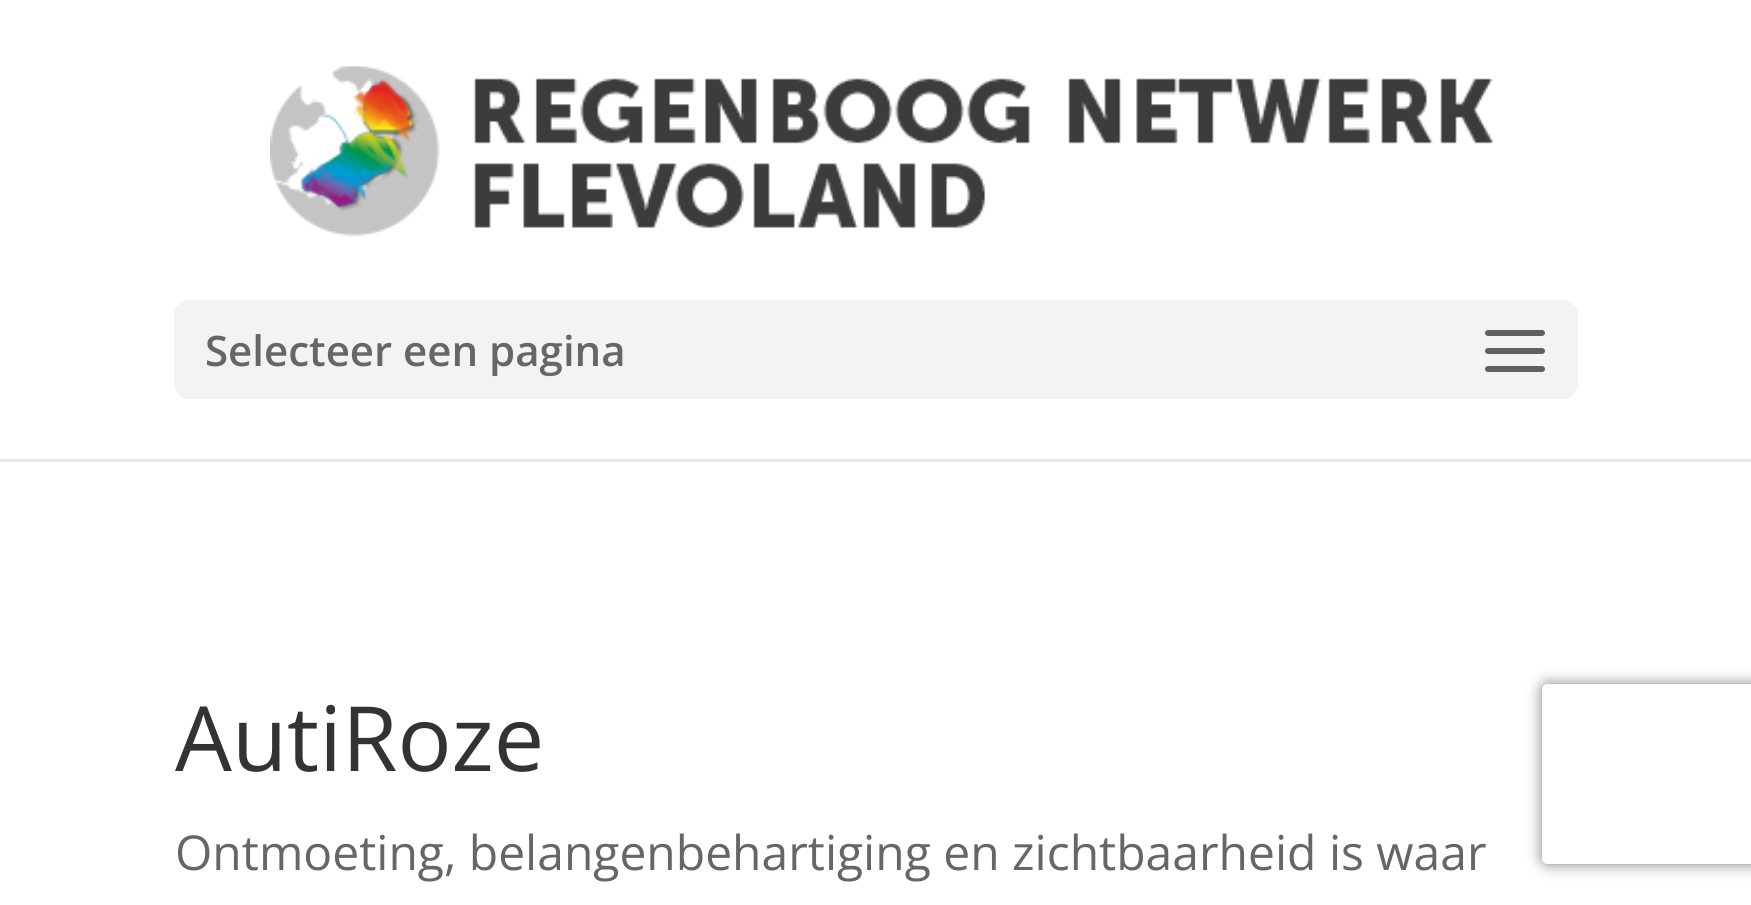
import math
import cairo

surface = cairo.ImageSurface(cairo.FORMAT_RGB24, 1751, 905)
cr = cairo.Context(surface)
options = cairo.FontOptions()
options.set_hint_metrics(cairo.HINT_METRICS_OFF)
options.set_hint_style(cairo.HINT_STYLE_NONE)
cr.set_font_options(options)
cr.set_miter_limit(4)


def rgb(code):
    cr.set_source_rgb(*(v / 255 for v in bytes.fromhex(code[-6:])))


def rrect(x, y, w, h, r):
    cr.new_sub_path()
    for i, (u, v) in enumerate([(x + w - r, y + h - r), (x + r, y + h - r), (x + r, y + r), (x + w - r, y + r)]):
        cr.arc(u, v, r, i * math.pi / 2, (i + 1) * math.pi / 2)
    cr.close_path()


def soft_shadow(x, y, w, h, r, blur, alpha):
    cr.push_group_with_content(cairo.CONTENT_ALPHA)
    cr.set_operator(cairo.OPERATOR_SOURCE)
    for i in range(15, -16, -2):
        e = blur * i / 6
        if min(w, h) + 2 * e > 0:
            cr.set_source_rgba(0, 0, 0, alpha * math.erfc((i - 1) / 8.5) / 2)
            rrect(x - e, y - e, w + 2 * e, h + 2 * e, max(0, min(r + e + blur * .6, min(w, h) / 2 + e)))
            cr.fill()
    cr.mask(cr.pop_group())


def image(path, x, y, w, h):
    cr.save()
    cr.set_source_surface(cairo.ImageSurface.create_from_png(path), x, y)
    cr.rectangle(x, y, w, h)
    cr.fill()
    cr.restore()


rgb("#ffffff")
cr.paint()
rgb("#e6e6e6")
cr.rectangle(0, 459, 1751, 3)
cr.fill()
image("img/1.png", 270, 65, 1224, 172)
rgb("#f3f3f3")
rrect(174, 300, 1404, 99, 15)
cr.fill()
image("img/2.png", 1485, 330, 60, 42)
cr.save()
cr.set_fill_rule(cairo.FILL_RULE_EVEN_ODD)
cr.new_path()
cr.move_to(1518, 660)
cr.line_to(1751, 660)
cr.line_to(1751, 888)
cr.line_to(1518, 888)
cr.close_path()
cr.move_to(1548, 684)
cr.line_to(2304, 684)
cr.curve_to(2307.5, 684, 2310, 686.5, 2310, 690)
cr.line_to(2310, 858)
cr.curve_to(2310, 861.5, 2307.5, 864, 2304, 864)
cr.line_to(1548, 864)
cr.curve_to(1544.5, 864, 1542, 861.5, 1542, 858)
cr.line_to(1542, 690)
cr.curve_to(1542, 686.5, 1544.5, 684, 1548, 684)
cr.close_path()
cr.clip()
rgb("#808080")
soft_shadow(1542, 684, 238, 180, 6, 7.5, 1)
cr.restore()
cr.select_font_face("Open Sans SemiBold")
cr.set_font_size(42)
rgb("#666666")
cr.move_to(205, 366)
cr.show_text("Selecteer een pagina")
cr.select_font_face("Open Sans")
cr.set_font_size(90)
rgb("#333333")
cr.move_to(175, 771)
cr.show_text("AutiRoze")
cr.set_font_size(48)
rgb("#666666")
cr.move_to(175, 870)
cr.show_text("Ontmoeting, belangenbehartiging en zichtbaarheid is waar")
surface.write_to_png("page.png")
